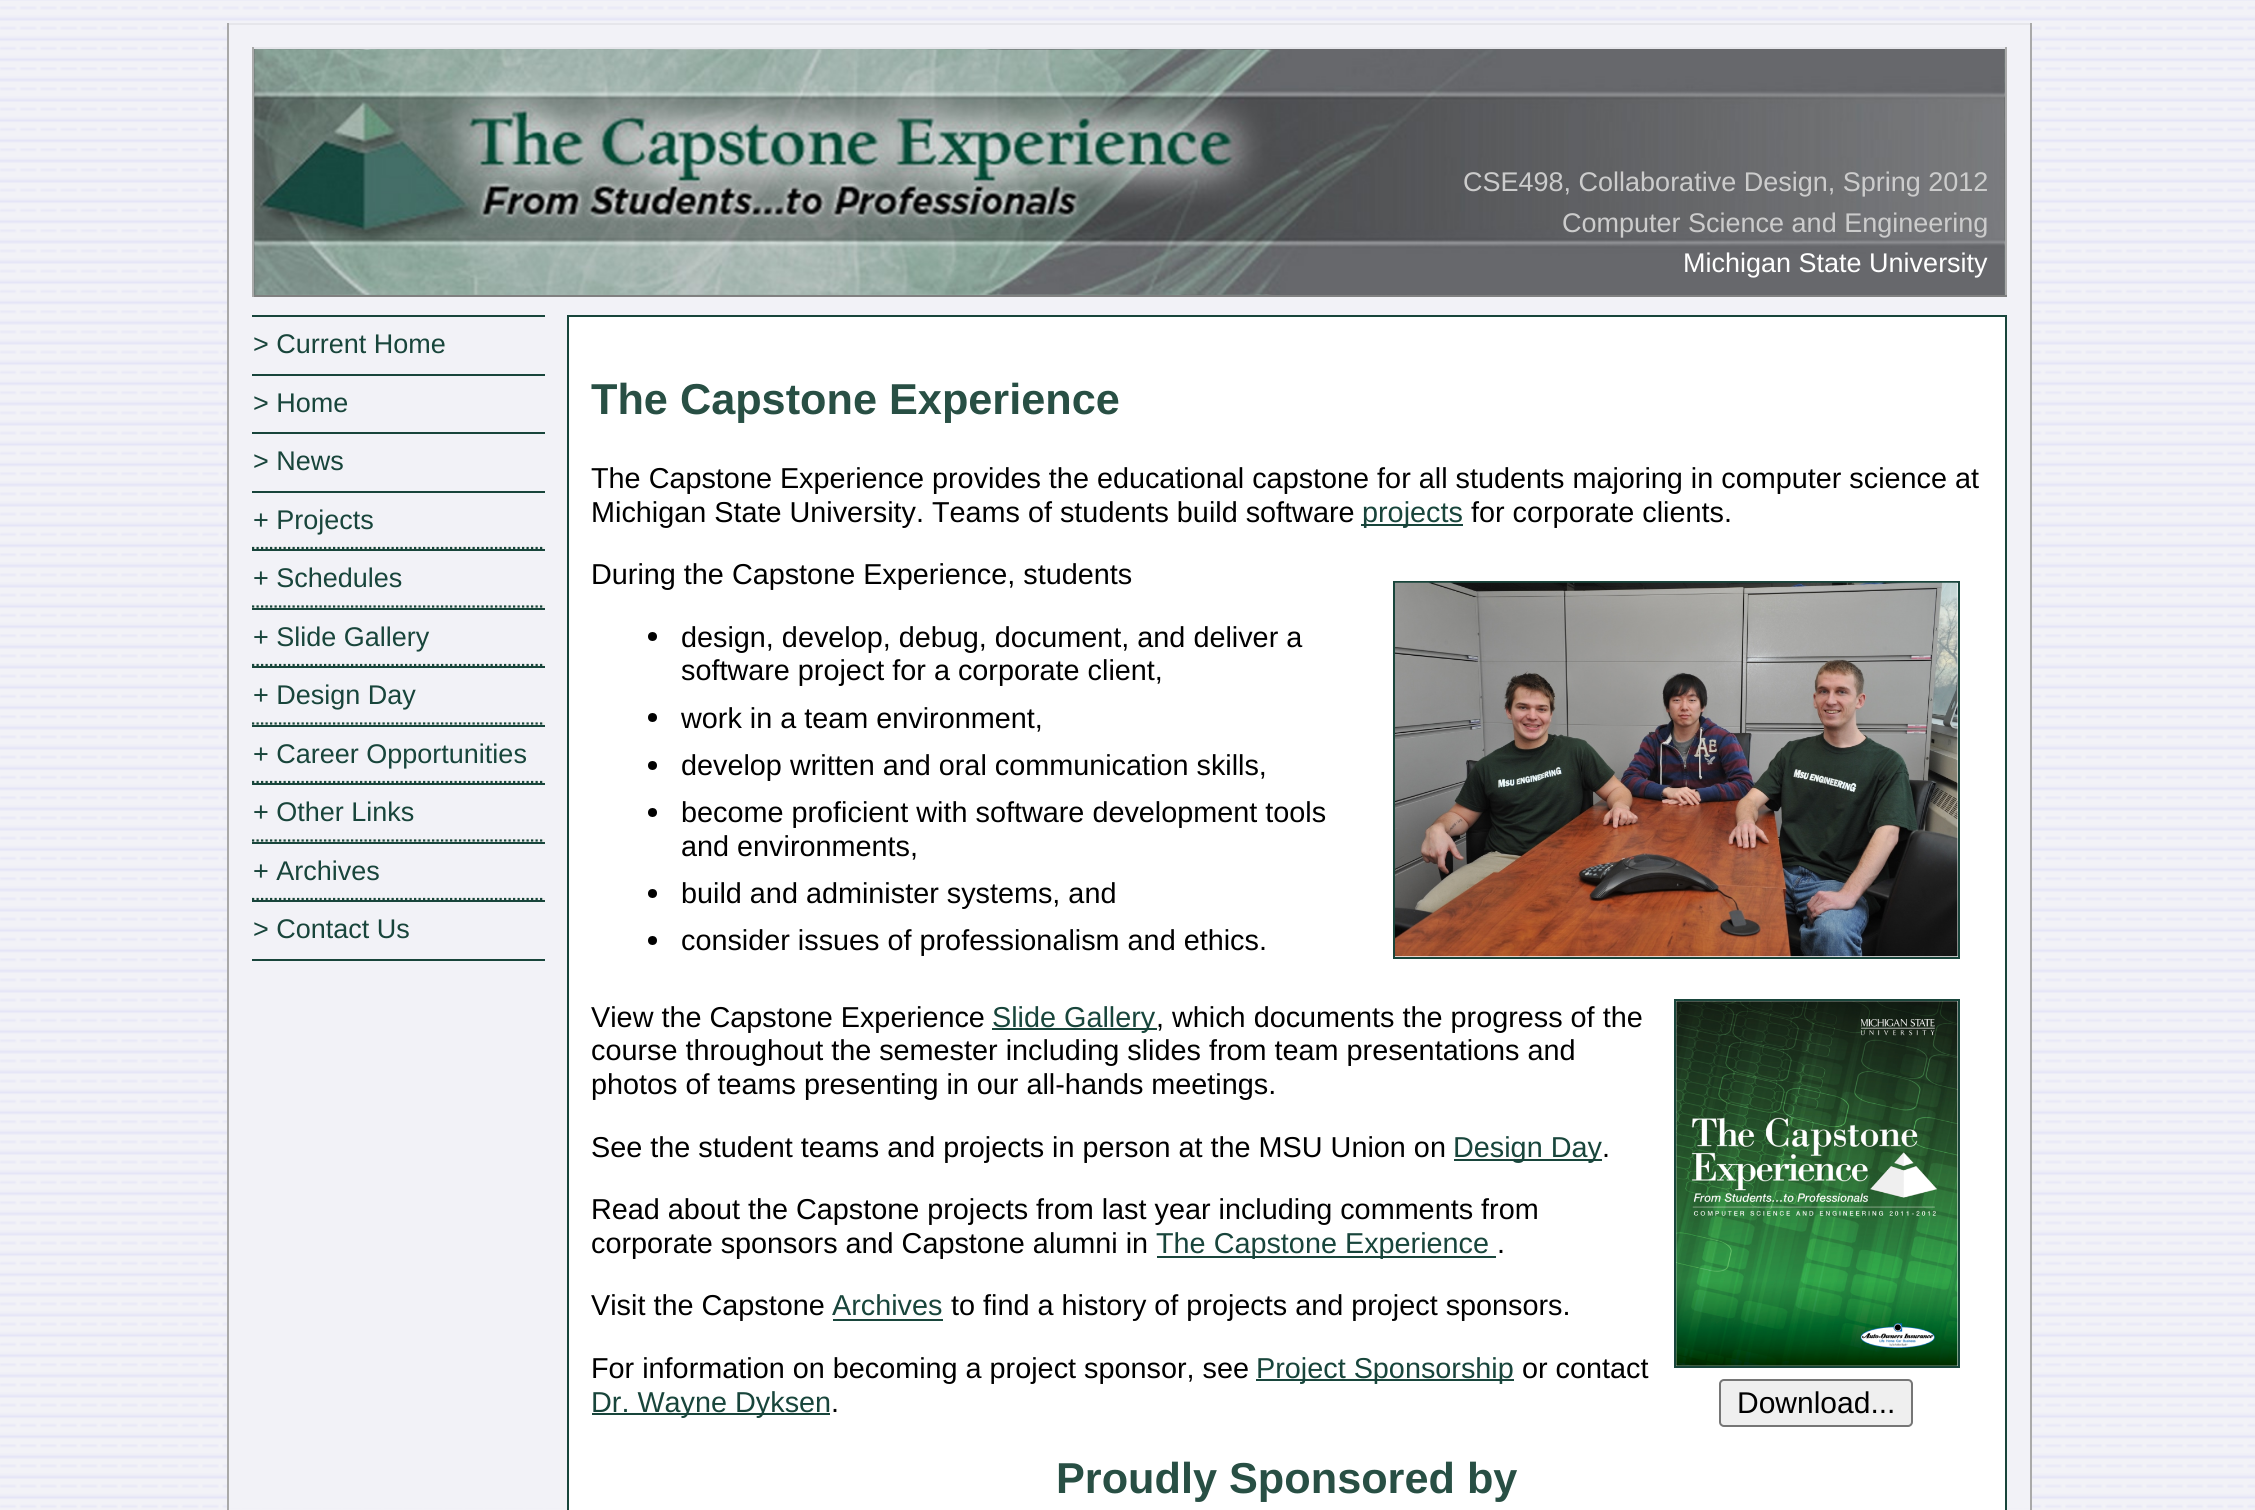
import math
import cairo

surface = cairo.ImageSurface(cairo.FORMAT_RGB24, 2255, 1510)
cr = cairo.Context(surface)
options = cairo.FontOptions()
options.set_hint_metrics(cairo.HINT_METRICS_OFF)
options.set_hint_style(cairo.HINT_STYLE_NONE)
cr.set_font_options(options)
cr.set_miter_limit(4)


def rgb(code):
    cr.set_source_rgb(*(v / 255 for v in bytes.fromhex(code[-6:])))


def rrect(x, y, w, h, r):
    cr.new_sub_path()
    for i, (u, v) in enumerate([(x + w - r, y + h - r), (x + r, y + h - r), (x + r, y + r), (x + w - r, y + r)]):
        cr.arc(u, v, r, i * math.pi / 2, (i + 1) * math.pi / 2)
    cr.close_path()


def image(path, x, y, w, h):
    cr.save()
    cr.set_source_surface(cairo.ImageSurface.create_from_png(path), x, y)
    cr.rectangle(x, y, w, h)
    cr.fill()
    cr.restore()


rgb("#ffffff")
cr.paint()
image("img/1.png", 0, 0, 2255, 1510)
for x, y, w, h, color in [
    (229, 26, 1801, 1482, "#f2f2f7"),
    (227, 23, 1805, 2, "#e6e6eb"),
    (2030, 23, 2, 1487, "#a9a9a9"),
    (227, 23, 2, 1487, "#a9a9a9"),
]:
    rgb(color)
    cr.rectangle(x, y, w, h)
    cr.fill()
image("img/2.png", 254, 49, 1751, 246)
for x, y, w, h, color in [
    (252, 47, 1755, 2, "#e6e6eb"),
    (2005, 47, 2, 250, "#a9a9a9"),
    (252, 295, 1755, 2, "#808080"),
    (252, 47, 2, 250, "#a9a9a9"),
    (252, 315, 293, 2, "#18453b"),
    (252, 374, 293, 2, "#18453b"),
    (252, 432, 293, 2, "#18453b"),
    (252, 491, 293, 2, "#18453b"),
    (252, 549, 293, 2, "#18453b"),
    (252, 547, 293, 2, "#eeeeee"),
]:
    rgb(color)
    cr.rectangle(x, y, w, h)
    cr.fill()
cr.save()
cr.rectangle(252, 493, 293, 56)
cr.clip()
cr.new_path()
cr.move_to(252, 548)
cr.line_to(544.5, 548)
rgb("#18453b")
cr.set_line_width(2.2)
cr.set_dash([2.25, 2.25])
cr.stroke()
cr.restore()
rgb("#18453b")
cr.rectangle(252, 608, 293, 2)
cr.fill()
rgb("#eeeeee")
cr.rectangle(252, 605, 293, 3)
cr.fill()
cr.new_path()
cr.move_to(252, 606.5)
cr.line_to(544.5, 606.5)
rgb("#18453b")
cr.set_line_width(2.2)
cr.set_dash([2.25, 2.25])
cr.stroke()
cr.rectangle(252, 666, 293, 2)
cr.fill()
rgb("#eeeeee")
cr.rectangle(252, 664, 293, 2)
cr.fill()
cr.save()
cr.rectangle(252, 610, 293, 56)
cr.clip()
cr.new_path()
cr.move_to(252, 665)
cr.line_to(544.5, 665)
rgb("#18453b")
cr.stroke()
cr.restore()
rgb("#18453b")
cr.rectangle(252, 725, 293, 2)
cr.fill()
rgb("#eeeeee")
cr.rectangle(252, 722, 293, 3)
cr.fill()
cr.new_path()
cr.move_to(252, 723.5)
cr.line_to(544.5, 723.5)
rgb("#18453b")
cr.stroke()
cr.rectangle(252, 783, 293, 2)
cr.fill()
rgb("#eeeeee")
cr.rectangle(252, 781, 293, 2)
cr.fill()
cr.save()
cr.rectangle(252, 727, 293, 56)
cr.clip()
cr.new_path()
cr.move_to(252, 782)
cr.line_to(544.5, 782)
rgb("#18453b")
cr.stroke()
cr.restore()
rgb("#18453b")
cr.rectangle(252, 842, 293, 2)
cr.fill()
rgb("#eeeeee")
cr.rectangle(252, 839, 293, 3)
cr.fill()
cr.new_path()
cr.move_to(252, 840.5)
cr.line_to(544.5, 840.5)
rgb("#18453b")
cr.stroke()
cr.rectangle(252, 900, 293, 2)
cr.fill()
rgb("#eeeeee")
cr.rectangle(252, 898, 293, 2)
cr.fill()
cr.save()
cr.rectangle(252, 844, 293, 56)
cr.clip()
cr.new_path()
cr.move_to(252, 899)
cr.line_to(544.5, 899)
rgb("#18453b")
cr.stroke()
cr.restore()
rgb("#18453b")
cr.rectangle(252, 959, 293, 2)
cr.fill()
rgb("#ffffff")
cr.rectangle(568, 316, 1438, 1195)
cr.fill_preserve()
rgb("#18453b")
cr.set_line_width(2)
cr.set_dash([])
cr.stroke()
cr.rectangle(1361, 524, 102, 2)
cr.fill()
rgb("#000000")
cr.arc(652.5, 636.5, 4.5, 0, 2 * math.pi)
cr.fill()
cr.arc(652.5, 717.5, 4.5, 0, 2 * math.pi)
cr.fill()
cr.arc(652.5, 765.5, 4.5, 0, 2 * math.pi)
cr.fill()
cr.arc(652.5, 812.5, 4.5, 0, 2 * math.pi)
cr.fill()
cr.arc(652.5, 893.5, 4.5, 0, 2 * math.pi)
cr.fill()
cr.arc(652.5, 940.5, 4.5, 0, 2 * math.pi)
cr.fill()
cr.rectangle(1394, 582, 565, 376)
rgb("#18453b")
cr.stroke()
image("img/3.png", 1395, 582, 563, 375)
for x, y, w, h, color in [
    (992, 1028, 165, 2, "#18453b"),
    (1454, 1159, 148, 2, "#18453b"),
    (1157, 1256, 339, 2, "#18453b"),
    (833, 1319, 110, 2, "#18453b"),
    (1256, 1379, 258, 2, "#18453b"),
    (592, 1413, 238, 2, "#18453b"),
]:
    rgb(color)
    cr.rectangle(x, y, w, h)
    cr.fill()
cr.rectangle(1675, 1000, 284, 367)
cr.stroke()
image("img/4.png", 1676, 1001, 282, 365)
rgb("#efefef")
rrect(1720, 1380, 192, 46, 4)
cr.fill_preserve()
rgb("#767676")
cr.stroke()
cr.select_font_face("Liberation Sans")
cr.set_font_size(27)
rgb("#cccccc")
cr.move_to(1463, 191)
cr.show_text("CSE498, Collaborative Design, Spring 2012")
cr.move_to(1562, 232)
cr.show_text("Computer Science and Engineering")
rgb("#ffffff")
cr.move_to(1683, 272)
cr.show_text("Michigan State University")
rgb("#18453b")
for x, y, s in [
    (253, 353, "> Current Home"),
    (253, 412, "> Home"),
    (253, 470, "> News"),
    (253, 529, "+ Projects"),
    (253, 587, "+ Schedules"),
    (253, 646, "+ Slide Gallery"),
    (253, 704, "+ Design Day"),
    (253, 763, "+ Career Opportunities"),
    (253, 821, "+ Other Links"),
    (253, 880, "+ Archives"),
    (253, 938, "> Contact Us"),
]:
    cr.move_to(x, y)
    cr.show_text(s)
cr.select_font_face("Liberation Sans", cairo.FONT_SLANT_NORMAL, cairo.FONT_WEIGHT_BOLD)
cr.set_font_size(43.25)
rgb("#284f44")
cr.move_to(591, 414)
cr.show_text("The Capstone Experience")
cr.select_font_face("Liberation Sans")
cr.set_font_size(28.8)
rgb("#000000")
cr.move_to(591, 488)
cr.show_text("The Capstone Experience provides the educational capstone for all students majoring in computer science at")
cr.move_to(591, 522)
cr.show_text("Michigan State University. Teams of students build software")
rgb("#18453b")
cr.move_to(1362, 522)
cr.show_text("projects")
rgb("#000000")
for x, y, s in [
    (1471, 522, "for corporate clients."),
    (591, 584, "During the Capstone Experience, students"),
    (681, 647, "design, develop, debug, document, and deliver a"),
    (681, 680, "software project for a corporate client,"),
    (681, 728, "work in a team environment,"),
    (681, 775, "develop written and oral communication skills,"),
    (681, 822, "become proficient with software development tools"),
    (681, 856, "and environments,"),
    (681, 903, "build and administer systems, and"),
    (681, 950, "consider issues of professionalism and ethics."),
    (591, 1027, "View the Capstone Experience"),
]:
    cr.move_to(x, y)
    cr.show_text(s)
rgb("#18453b")
cr.move_to(992, 1027)
cr.show_text("Slide Gallery")
rgb("#000000")
for x, y, s in [
    (1156, 1027, ", which documents the progress of the"),
    (591, 1060, "course throughout the semester including slides from team presentations and"),
    (591, 1094, "photos of teams presenting in our all-hands meetings."),
    (591, 1157, "See the student teams and projects in person at the MSU Union on"),
]:
    cr.move_to(x, y)
    cr.show_text(s)
rgb("#18453b")
cr.move_to(1453, 1157)
cr.show_text("Design Day")
rgb("#000000")
for x, y, s in [
    (1602, 1157, "."),
    (591, 1219, "Read about the Capstone projects from last year including comments from"),
    (591, 1253, "corporate sponsors and Capstone alumni in"),
]:
    cr.move_to(x, y)
    cr.show_text(s)
rgb("#18453b")
cr.move_to(1156, 1253)
cr.show_text("The Capstone Experience")
rgb("#000000")
cr.move_to(1497, 1253)
cr.show_text(".")
cr.move_to(591, 1315)
cr.show_text("Visit the Capstone")
rgb("#18453b")
cr.move_to(832, 1315)
cr.show_text("Archives")
rgb("#000000")
cr.move_to(951, 1315)
cr.show_text("to find a history of projects and project sponsors.")
cr.move_to(591, 1378)
cr.show_text("For information on becoming a project sponsor, see")
rgb("#18453b")
cr.move_to(1256, 1378)
cr.show_text("Project Sponsorship")
rgb("#000000")
cr.move_to(1522, 1378)
cr.show_text("or contact")
rgb("#18453b")
cr.move_to(591, 1412)
cr.show_text("Dr. Wayne Dyksen")
rgb("#000000")
cr.move_to(831, 1412)
cr.show_text(".")
cr.set_font_size(30)
cr.move_to(1737, 1413)
cr.show_text("Download...")
cr.select_font_face("Liberation Sans", cairo.FONT_SLANT_NORMAL, cairo.FONT_WEIGHT_BOLD)
cr.set_font_size(43.25)
rgb("#284f44")
cr.move_to(1056, 1493)
cr.show_text("Proudly Sponsored by")
surface.write_to_png("page.png")
